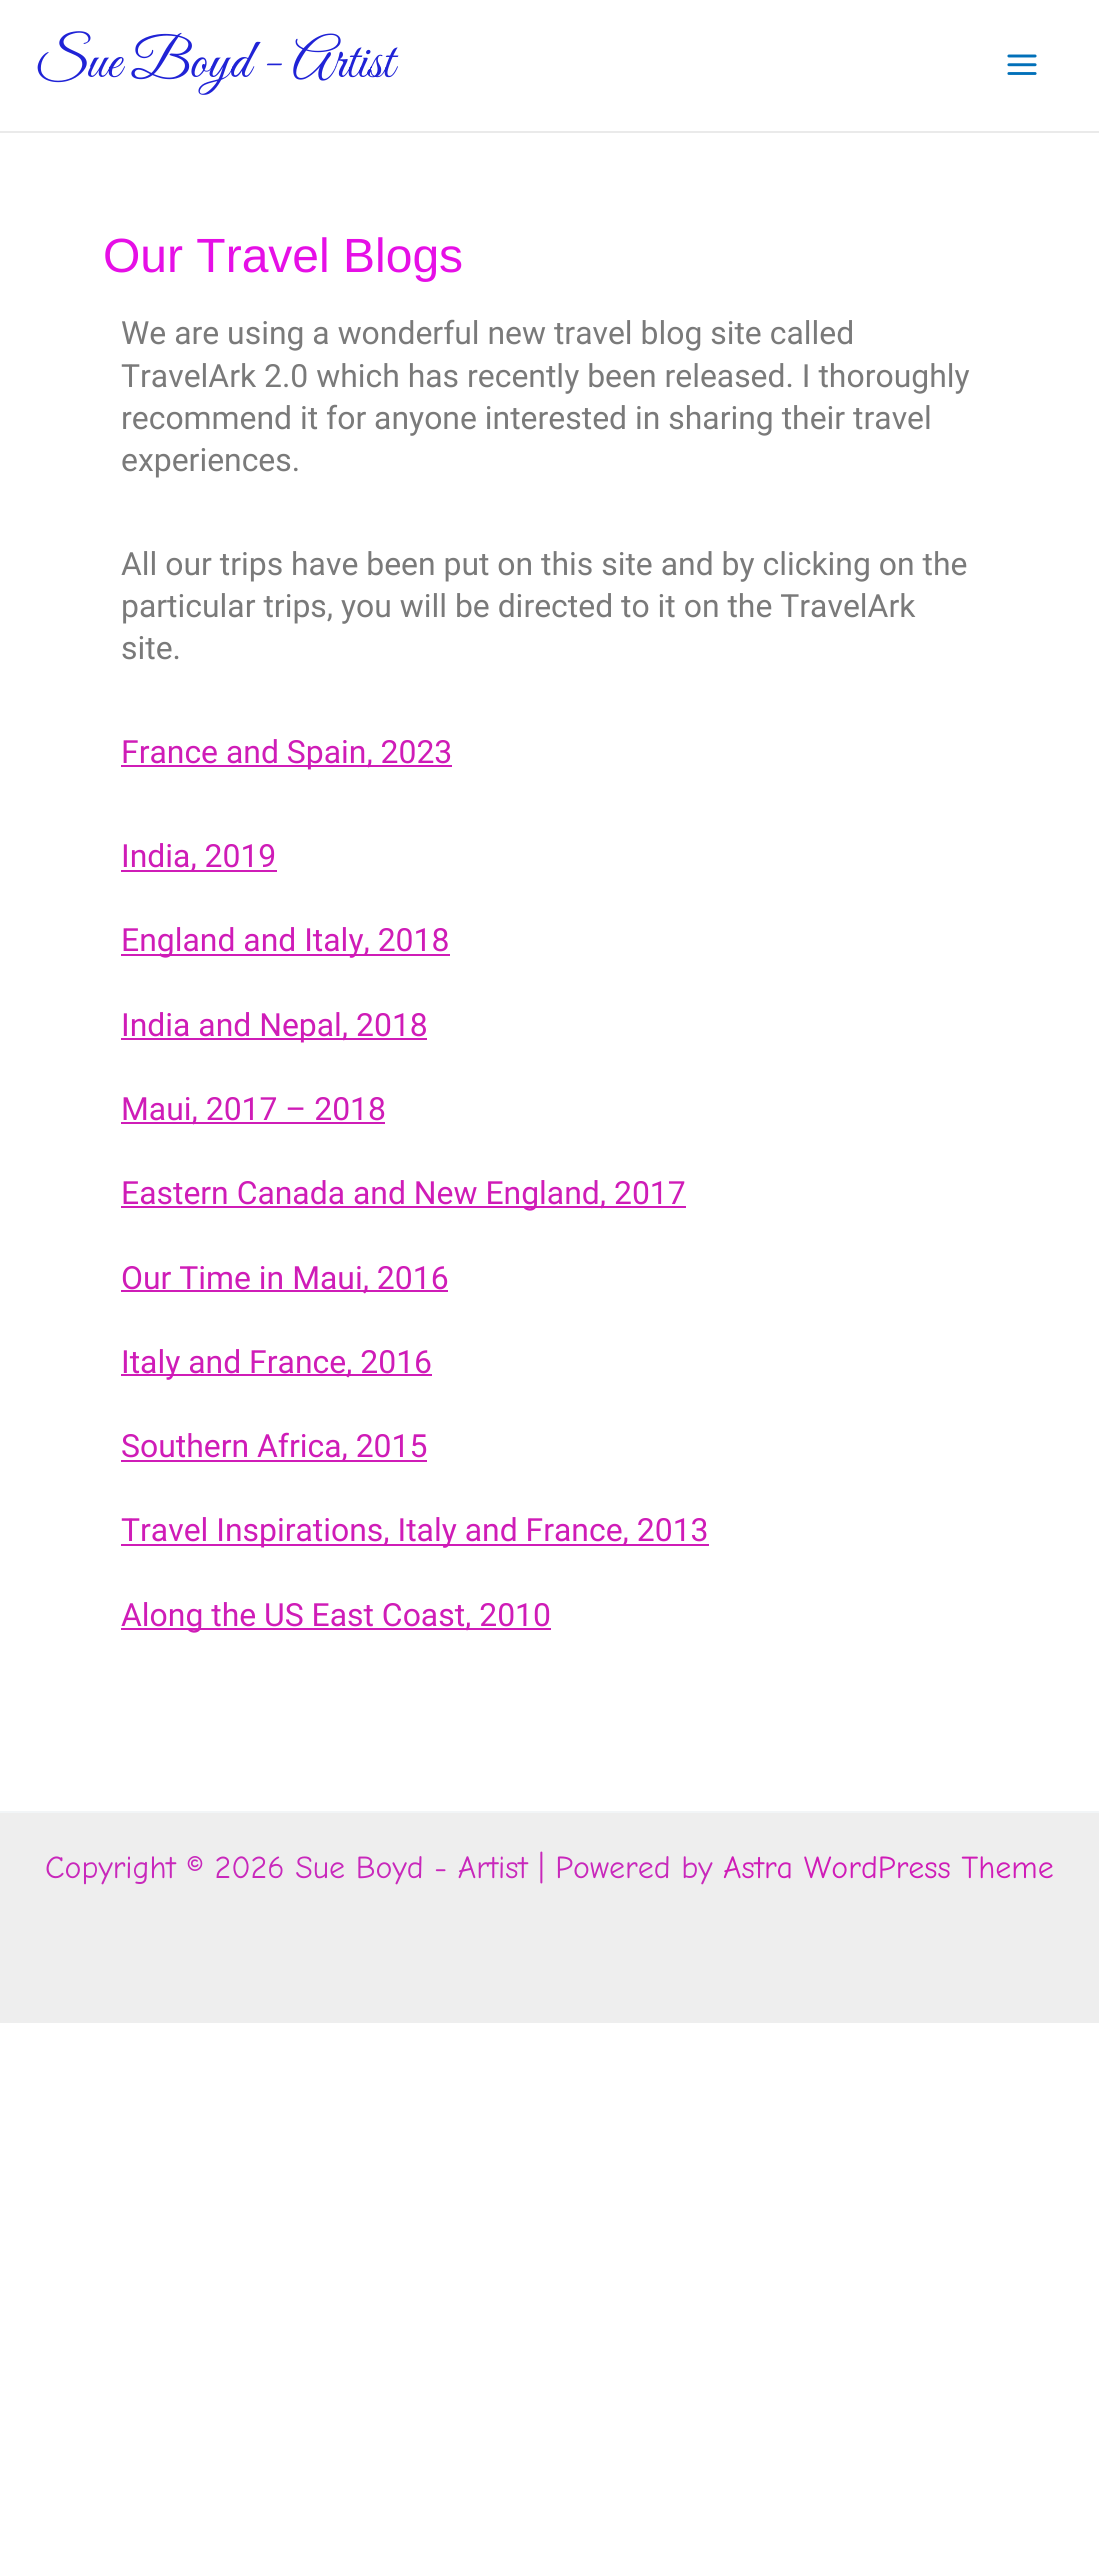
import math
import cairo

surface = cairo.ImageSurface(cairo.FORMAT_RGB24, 1099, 2569)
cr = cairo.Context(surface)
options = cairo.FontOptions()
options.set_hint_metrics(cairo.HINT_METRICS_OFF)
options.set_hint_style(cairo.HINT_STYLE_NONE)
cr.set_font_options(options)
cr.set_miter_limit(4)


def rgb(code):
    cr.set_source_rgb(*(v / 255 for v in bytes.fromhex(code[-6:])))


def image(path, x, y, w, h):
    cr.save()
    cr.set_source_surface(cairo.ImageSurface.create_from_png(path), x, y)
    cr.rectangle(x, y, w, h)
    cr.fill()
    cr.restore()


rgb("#ffffff")
cr.paint()
rgb("#eaeaea")
cr.rectangle(0, 131, 1099, 2)
cr.fill()
image("img/1.png", 1007, 54, 30, 21)
for x, y, w, h, color in [
    (121, 765, 331, 2, "#cf1cb7"),
    (121, 870, 156, 2, "#cf1cb7"),
    (121, 954, 329, 2, "#cf1cb7"),
    (121, 1038, 306, 2, "#cf1cb7"),
    (121, 1122, 264, 2, "#cf1cb7"),
    (121, 1206, 565, 2, "#cf1cb7"),
    (121, 1290, 327, 2, "#cf1cb7"),
    (121, 1374, 311, 2, "#cf1cb7"),
    (121, 1460, 306, 2, "#cf1cb7"),
    (121, 1544, 588, 2, "#cf1cb7"),
    (121, 1628, 430, 2, "#cf1cb7"),
    (0, 1813, 1099, 210, "#eeeeee"),
    (0, 1811, 1099, 2, "#f2f5f7"),
]:
    rgb(color)
    cr.rectangle(x, y, w, h)
    cr.fill()
cr.select_font_face("Great Vibes")
cr.set_font_size(56)
rgb("#2023d6")
cr.move_to(35, 77)
cr.show_text("Sue Boyd - Artist")
cr.select_font_face("Liberation Sans")
cr.set_font_size(48)
rgb("#e60fe6")
cr.move_to(103, 272)
cr.show_text("Our Travel Blogs")
cr.select_font_face("Roboto")
cr.set_font_size(31.9)
rgb("#7a7a7a")
for x, y, s in [
    (121, 344, "We are using a wonderful new travel blog site called"),
    (121, 387, "TravelArk 2.0 which has recently been released. I thoroughly"),
    (121, 429, "recommend it for anyone interested in sharing their travel"),
    (121, 471, "experiences."),
    (121, 575, "All our trips have been put on this site and by clicking on the"),
    (121, 617, "particular trips, you will be directed to it on the TravelArk"),
    (121, 659, "site."),
]:
    cr.move_to(x, y)
    cr.show_text(s)
rgb("#cf1cb7")
for x, y, s in [
    (121, 763, "France and Spain, 2023"),
    (121, 867, "India, 2019"),
    (121, 951, "England and Italy, 2018"),
    (121, 1036, "India and Nepal, 2018"),
    (121, 1120, "Maui, 2017 – 2018"),
    (121, 1204, "Eastern Canada and New England, 2017"),
    (121, 1289, "Our Time in Maui, 2016"),
    (121, 1373, "Italy and France, 2016"),
    (121, 1457, "Southern Africa, 2015"),
    (121, 1541, "Travel Inspirations, Italy and France, 2013"),
    (121, 1626, "Along the US East Coast, 2010"),
]:
    cr.move_to(x, y)
    cr.show_text(s)
cr.select_font_face("Comic Neue")
rgb("#c828bb")
cr.move_to(45, 1878)
cr.show_text("Copyright © 2026 Sue Boyd - Artist | Powered by")
rgb("#cf1cb7")
cr.move_to(723, 1878)
cr.show_text("Astra WordPress Theme")
surface.write_to_png("page.png")
